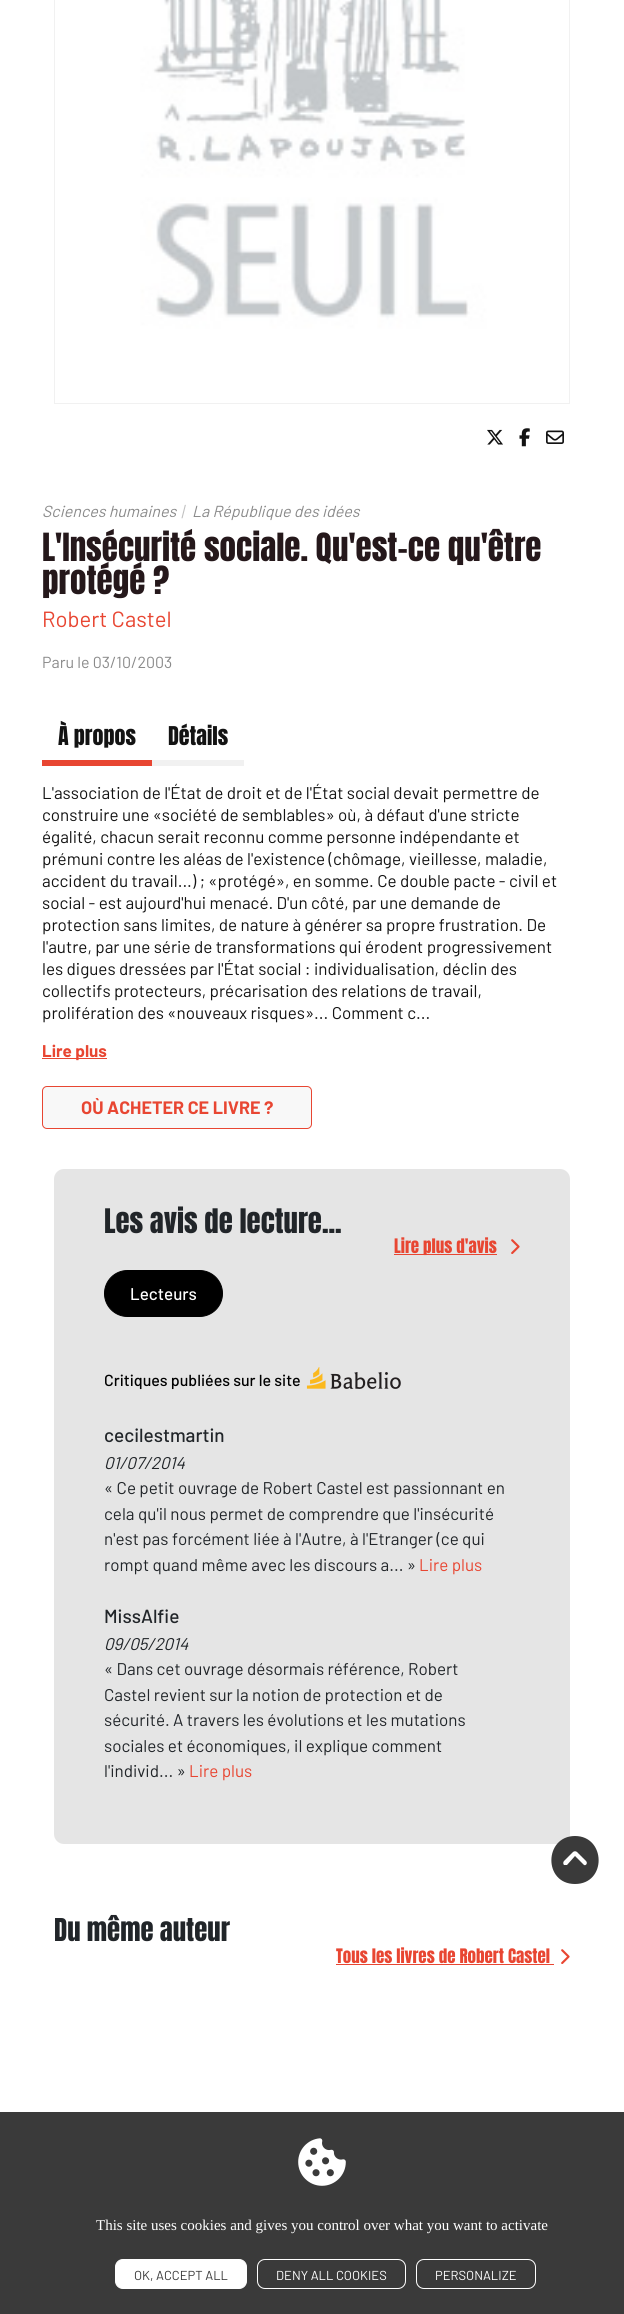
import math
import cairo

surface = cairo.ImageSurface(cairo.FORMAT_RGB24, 624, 2314)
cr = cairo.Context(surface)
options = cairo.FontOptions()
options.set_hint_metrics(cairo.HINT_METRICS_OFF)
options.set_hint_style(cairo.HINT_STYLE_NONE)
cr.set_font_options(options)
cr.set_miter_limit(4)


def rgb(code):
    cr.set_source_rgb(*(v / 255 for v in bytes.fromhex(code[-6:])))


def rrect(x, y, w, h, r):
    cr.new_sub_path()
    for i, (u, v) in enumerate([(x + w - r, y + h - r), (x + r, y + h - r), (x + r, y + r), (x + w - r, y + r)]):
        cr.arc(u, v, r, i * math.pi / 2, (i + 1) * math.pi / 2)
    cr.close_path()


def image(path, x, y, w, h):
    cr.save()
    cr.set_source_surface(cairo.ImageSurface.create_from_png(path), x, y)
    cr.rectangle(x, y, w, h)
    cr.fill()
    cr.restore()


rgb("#ffffff")
cr.paint()
cr.rectangle(54.5, -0.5, 515, 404)
rgb("#f1f1f1")
cr.set_line_width(1)
cr.stroke()
image("img/1.png", 55, 0, 514, 403)
image("img/2.png", 487, 429, 16, 16)
image("img/3.png", 519, 428, 11, 19)
image("img/4.png", 546, 430, 18, 14)
for x, y, w, h, color in [
    (42, 760, 110, 6, "#e84632"),
    (152, 760, 92, 6, "#f1f1f1"),
    (42, 1058, 65, 1, "#e84632"),
]:
    rgb(color)
    cr.rectangle(x, y, w, h)
    cr.fill()
rgb("#f8f8f8")
rrect(42.5, 1086.5, 269, 42, 4.5)
cr.fill_preserve()
rgb("#e84632")
cr.stroke()
rgb("#e5e5e5")
rrect(54, 1169, 516, 675, 10)
cr.fill()
rgb("#e84632")
cr.rectangle(394, 1254, 103, 1)
cr.fill()
image("img/5.png", 511, 1239, 9, 15)
rgb("#000000")
rrect(104.5, 1270.5, 118, 46, 23)
cr.fill_preserve()
cr.stroke()
image("img/6.png", 306, 1367, 95, 22)
rgb("#e84632")
cr.rectangle(336, 1964, 218, 1)
cr.fill()
image("img/7.png", 561, 1949, 9, 15)
rgb("#3a3a3a")
cr.new_path()
cr.move_to(575, 1884)
cr.curve_to(607, 1884, 606, 1836, 575, 1836)
cr.curve_to(544, 1836, 543, 1884, 575, 1884)
cr.close_path()
cr.move_to(586, 1861)
cr.curve_to(588, 1863, 586, 1866, 584, 1865)
cr.line_to(575, 1856)
cr.line_to(567, 1865)
cr.curve_to(566, 1865, 565, 1865, 564, 1865)
cr.curve_to(563, 1864, 563, 1862, 564, 1861)
cr.line_to(573, 1852)
cr.curve_to(574, 1851, 576, 1851, 577, 1852)
cr.close_path()
cr.fill()
cr.rectangle(0, 2112, 624, 202)
cr.fill()
image("img/8.png", 298, 2138, 48, 48)
rgb("#ffffff")
rrect(115.5, 2259.5, 131, 29, 7.5)
cr.fill_preserve()
cr.stroke()
rrect(257.5, 2259.5, 148, 29, 7.5)
cr.stroke()
rrect(416.5, 2259.5, 119, 29, 7.5)
cr.stroke()
cr.select_font_face("Barlow", cairo.FONT_SLANT_ITALIC)
cr.set_font_size(16)
rgb("#8a8a8a")
cr.move_to(42, 517)
cr.show_text("Sciences humaines")
rgb("#c1c1c1")
cr.move_to(181, 517)
cr.show_text("|")
rgb("#8a8a8a")
cr.move_to(192, 517)
cr.show_text("La République des idées")
cr.select_font_face("Anton")
cr.set_font_size(33)
rgb("#25181b")
cr.move_to(42, 561)
cr.show_text("L'Insécurité sociale. Qu'est-ce qu'être")
cr.move_to(42, 594)
cr.show_text("protégé ?")
cr.select_font_face("Barlow")
cr.set_font_size(22)
rgb("#e84632")
cr.move_to(42, 627)
cr.show_text("Robert Castel")
cr.set_font_size(16)
rgb("#8a8a8a")
cr.move_to(42, 668)
cr.show_text("Paru le 03/10/2003")
cr.select_font_face("Anton")
cr.set_font_size(22)
rgb("#131313")
cr.move_to(58, 745)
cr.show_text("À propos")
cr.move_to(168, 745)
cr.show_text("Détails")
cr.select_font_face("Barlow")
cr.set_font_size(17)
for x, y, s in [
    (42, 799, "L'association de l'État de droit et de l'État social devait permettre de"),
    (42, 821, "construire une «société de semblables» où, à défaut d'une stricte"),
    (42, 843, "égalité, chacun serait reconnu comme personne indépendante et"),
    (42, 865, "prémuni contre les aléas de l'existence (chômage, vieillesse, maladie,"),
    (42, 887, "accident du travail...) ; «protégé», en somme. Ce double pacte - civil et"),
    (42, 909, "social - est aujourd'hui menacé. D'un côté, par une demande de"),
    (42, 931, "protection sans limites, de nature à générer sa propre frustration. De"),
    (42, 953, "l'autre, par une série de transformations qui érodent progressivement"),
    (42, 975, "les digues dressées par l'État social : individualisation, déclin des"),
    (42, 997, "collectifs protecteurs, précarisation des relations de travail,"),
    (42, 1019, "prolifération des «nouveaux risques»... Comment c..."),
]:
    cr.move_to(x, y)
    cr.show_text(s)
cr.select_font_face("Barlow", cairo.FONT_SLANT_NORMAL, cairo.FONT_WEIGHT_BOLD)
rgb("#e84632")
cr.move_to(42, 1057)
cr.show_text("Lire plus")
cr.set_font_size(18)
cr.move_to(81, 1114)
cr.show_text("OÙ ACHETER CE LIVRE ?")
cr.select_font_face("Anton")
cr.set_font_size(28.75)
rgb("#212529")
cr.move_to(104, 1233)
cr.show_text("Les avis de lecture...")
cr.set_font_size(17)
rgb("#e84632")
cr.move_to(394, 1253)
cr.show_text("Lire plus d'avis")
cr.select_font_face("Barlow Medium")
rgb("#ffffff")
cr.move_to(130, 1300)
cr.show_text("Lecteurs")
cr.set_font_size(16)
rgb("#000000")
cr.move_to(104, 1386)
cr.show_text("Critiques publiées sur le site")
cr.set_font_size(19)
rgb("#212529")
cr.move_to(104, 1442)
cr.show_text("cecilestmartin")
cr.select_font_face("Barlow", cairo.FONT_SLANT_ITALIC)
cr.set_font_size(17)
cr.move_to(104, 1469)
cr.show_text("01/07/2014")
cr.select_font_face("Barlow")
for x, y, s in [
    (104, 1494, "« Ce petit ouvrage de Robert Castel est passionnant en"),
    (104, 1520, "cela qu'il nous permet de comprendre que l'insécurité"),
    (104, 1545, "n'est pas forcément liée à l'Autre, à l'Etranger (ce qui"),
    (104, 1571, "rompt quand même avec les discours a... »"),
]:
    cr.move_to(x, y)
    cr.show_text(s)
rgb("#e84632")
cr.move_to(419, 1571)
cr.show_text("Lire plus")
cr.select_font_face("Barlow Medium")
cr.set_font_size(19)
rgb("#212529")
cr.move_to(104, 1623)
cr.show_text("MissAlfie")
cr.select_font_face("Barlow", cairo.FONT_SLANT_ITALIC)
cr.set_font_size(17)
cr.move_to(104, 1650)
cr.show_text("09/05/2014")
cr.select_font_face("Barlow")
for x, y, s in [
    (104, 1675, "« Dans cet ouvrage désormais référence, Robert"),
    (104, 1701, "Castel revient sur la notion de protection et de"),
    (104, 1726, "sécurité. A travers les évolutions et les mutations"),
    (104, 1752, "sociales et économiques, il explique comment"),
    (104, 1777, "l'individ... »"),
]:
    cr.move_to(x, y)
    cr.show_text(s)
rgb("#e84632")
cr.move_to(189, 1777)
cr.show_text("Lire plus")
cr.select_font_face("Anton")
cr.set_font_size(26.75)
rgb("#212529")
cr.move_to(54, 1941)
cr.show_text("Du même auteur")
cr.set_font_size(17)
rgb("#e84632")
cr.move_to(336, 1963)
cr.show_text("Tous les livres de Robert Castel")
cr.select_font_face("Liberation Serif")
cr.set_font_size(15)
rgb("#ffffff")
cr.move_to(96, 2230)
cr.show_text("This site uses cookies and gives you control over what you want to activate")
cr.select_font_face("Barlow")
cr.set_font_size(13)
rgb("#3a3a3a")
cr.move_to(134, 2280)
cr.show_text("OK, ACCEPT ALL")
rgb("#ffffff")
cr.move_to(276, 2280)
cr.show_text("DENY ALL COOKIES")
cr.move_to(435, 2280)
cr.show_text("PERSONALIZE")
surface.write_to_png("page.png")
